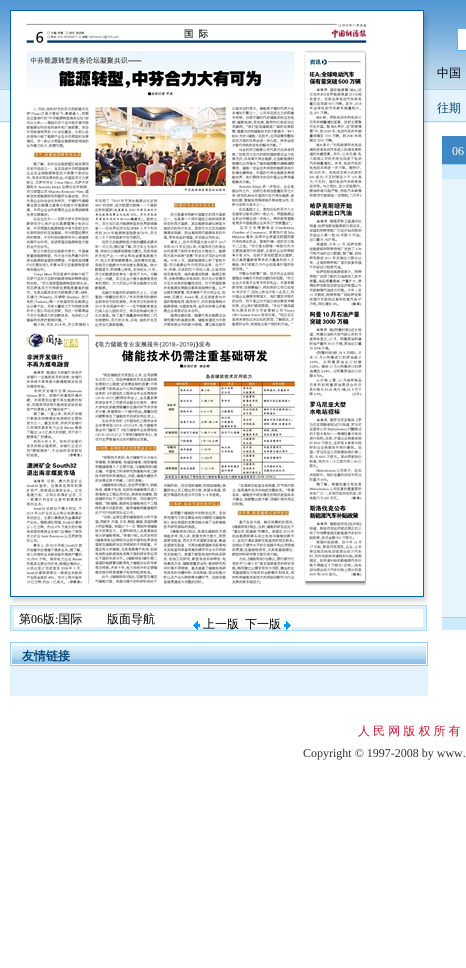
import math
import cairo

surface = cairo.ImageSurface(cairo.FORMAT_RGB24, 466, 968)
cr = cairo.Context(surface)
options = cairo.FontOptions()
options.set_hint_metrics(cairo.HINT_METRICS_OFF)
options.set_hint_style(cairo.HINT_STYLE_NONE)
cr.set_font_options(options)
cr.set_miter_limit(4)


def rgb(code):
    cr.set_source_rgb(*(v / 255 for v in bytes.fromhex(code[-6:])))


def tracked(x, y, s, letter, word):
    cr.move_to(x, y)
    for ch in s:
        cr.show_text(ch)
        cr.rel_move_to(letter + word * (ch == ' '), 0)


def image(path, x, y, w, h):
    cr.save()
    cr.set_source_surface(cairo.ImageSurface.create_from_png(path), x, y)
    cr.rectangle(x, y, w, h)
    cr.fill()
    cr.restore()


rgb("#ffffff")
cr.paint()
image("img/1.png", 0, 0, 466, 89)
rgb("#acd0ea")
cr.rectangle(0, 89, 466, 1)
cr.fill()
rgb("#ffffff")
cr.rectangle(457.5, 28.5, 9, 22)
cr.fill_preserve()
rgb("#66b1eb")
cr.set_line_width(1)
cr.stroke()
for x, y, w, h, color in [
    (442, 136, 24, 28, "#4087c5"),
    (442, 165, 24, 14, "#d0ebfe"),
    (442, 164, 24, 1, "#94d5ff"),
    (442, 179, 24, 438, "#e6f5fc"),
    (442, 618, 24, 12, "#d0ebfe"),
    (442, 617, 24, 1, "#94d5ff"),
]:
    rgb(color)
    cr.rectangle(x, y, w, h)
    cr.fill()
image("img/7.png", 0, 90, 466, 33)
image("img/2.png", 10, 10, 421, 595)
cr.rectangle(10.5, 10.5, 413, 586)
rgb("#0065a7")
cr.stroke()
image("img/3.png", 25, 23, 342, 563)
cr.rectangle(10.5, 605.5, 416, 25)
rgb("#aadbf9")
cr.stroke()
cr.rectangle(12.5, 607.5, 412, 21)
rgb("#def0fe")
cr.set_line_width(3)
cr.stroke()
image("img/4.png", 193, 621, 7, 9)
image("img/5.png", 284, 621, 7, 9)
cr.rectangle(10.5, 642.5, 417, 23)
rgb("#95cefb")
cr.set_line_width(1)
cr.stroke()
image("img/6.png", 12, 644, 414, 20)
rgb("#e2f3fd")
cr.rectangle(10, 666, 418, 30)
cr.fill()
cr.select_font_face("WenQuanYi Zen Hei Medium")
cr.set_font_size(12)
rgb("#000000")
cr.move_to(437, 77)
cr.show_text("中国")
rgb("#004677")
cr.move_to(437, 112)
cr.show_text("往期")
cr.select_font_face("Liberation Serif")
rgb("#ffffff")
cr.move_to(452, 155)
cr.show_text("06")
cr.select_font_face("WenQuanYi Zen Hei Medium")
rgb("#000000")
cr.move_to(19, 623)
cr.show_text("第")
cr.select_font_face("Liberation Serif")
cr.move_to(31, 623)
cr.show_text("06")
cr.select_font_face("WenQuanYi Zen Hei Medium")
cr.move_to(43, 623)
cr.show_text("版 国际")
cr.select_font_face("Liberation Serif")
cr.move_to(55, 623)
cr.show_text(":")
cr.select_font_face("WenQuanYi Zen Hei Medium")
for x, y, s in [
    (107, 623, "版面导航"),
    (203, 628, "上一版"),
    (245, 628, "下一版"),
]:
    cr.move_to(x, y)
    cr.show_text(s)
cr.select_font_face("WenQuanYi Zen Hei", cairo.FONT_SLANT_NORMAL, cairo.FONT_WEIGHT_BOLD)
rgb("#004677")
cr.move_to(22, 660)
cr.show_text("友情链接")
cr.select_font_face("WenQuanYi Zen Hei Medium")
rgb("#c41a34")
tracked(358, 735, "人 民 网 版 权 所 有", 0, -0.5)
cr.select_font_face("Liberation Serif")
rgb("#333333")
cr.move_to(303, 757)
cr.show_text("Copyright © 1997-2008 by www.")
surface.write_to_png("page.png")
